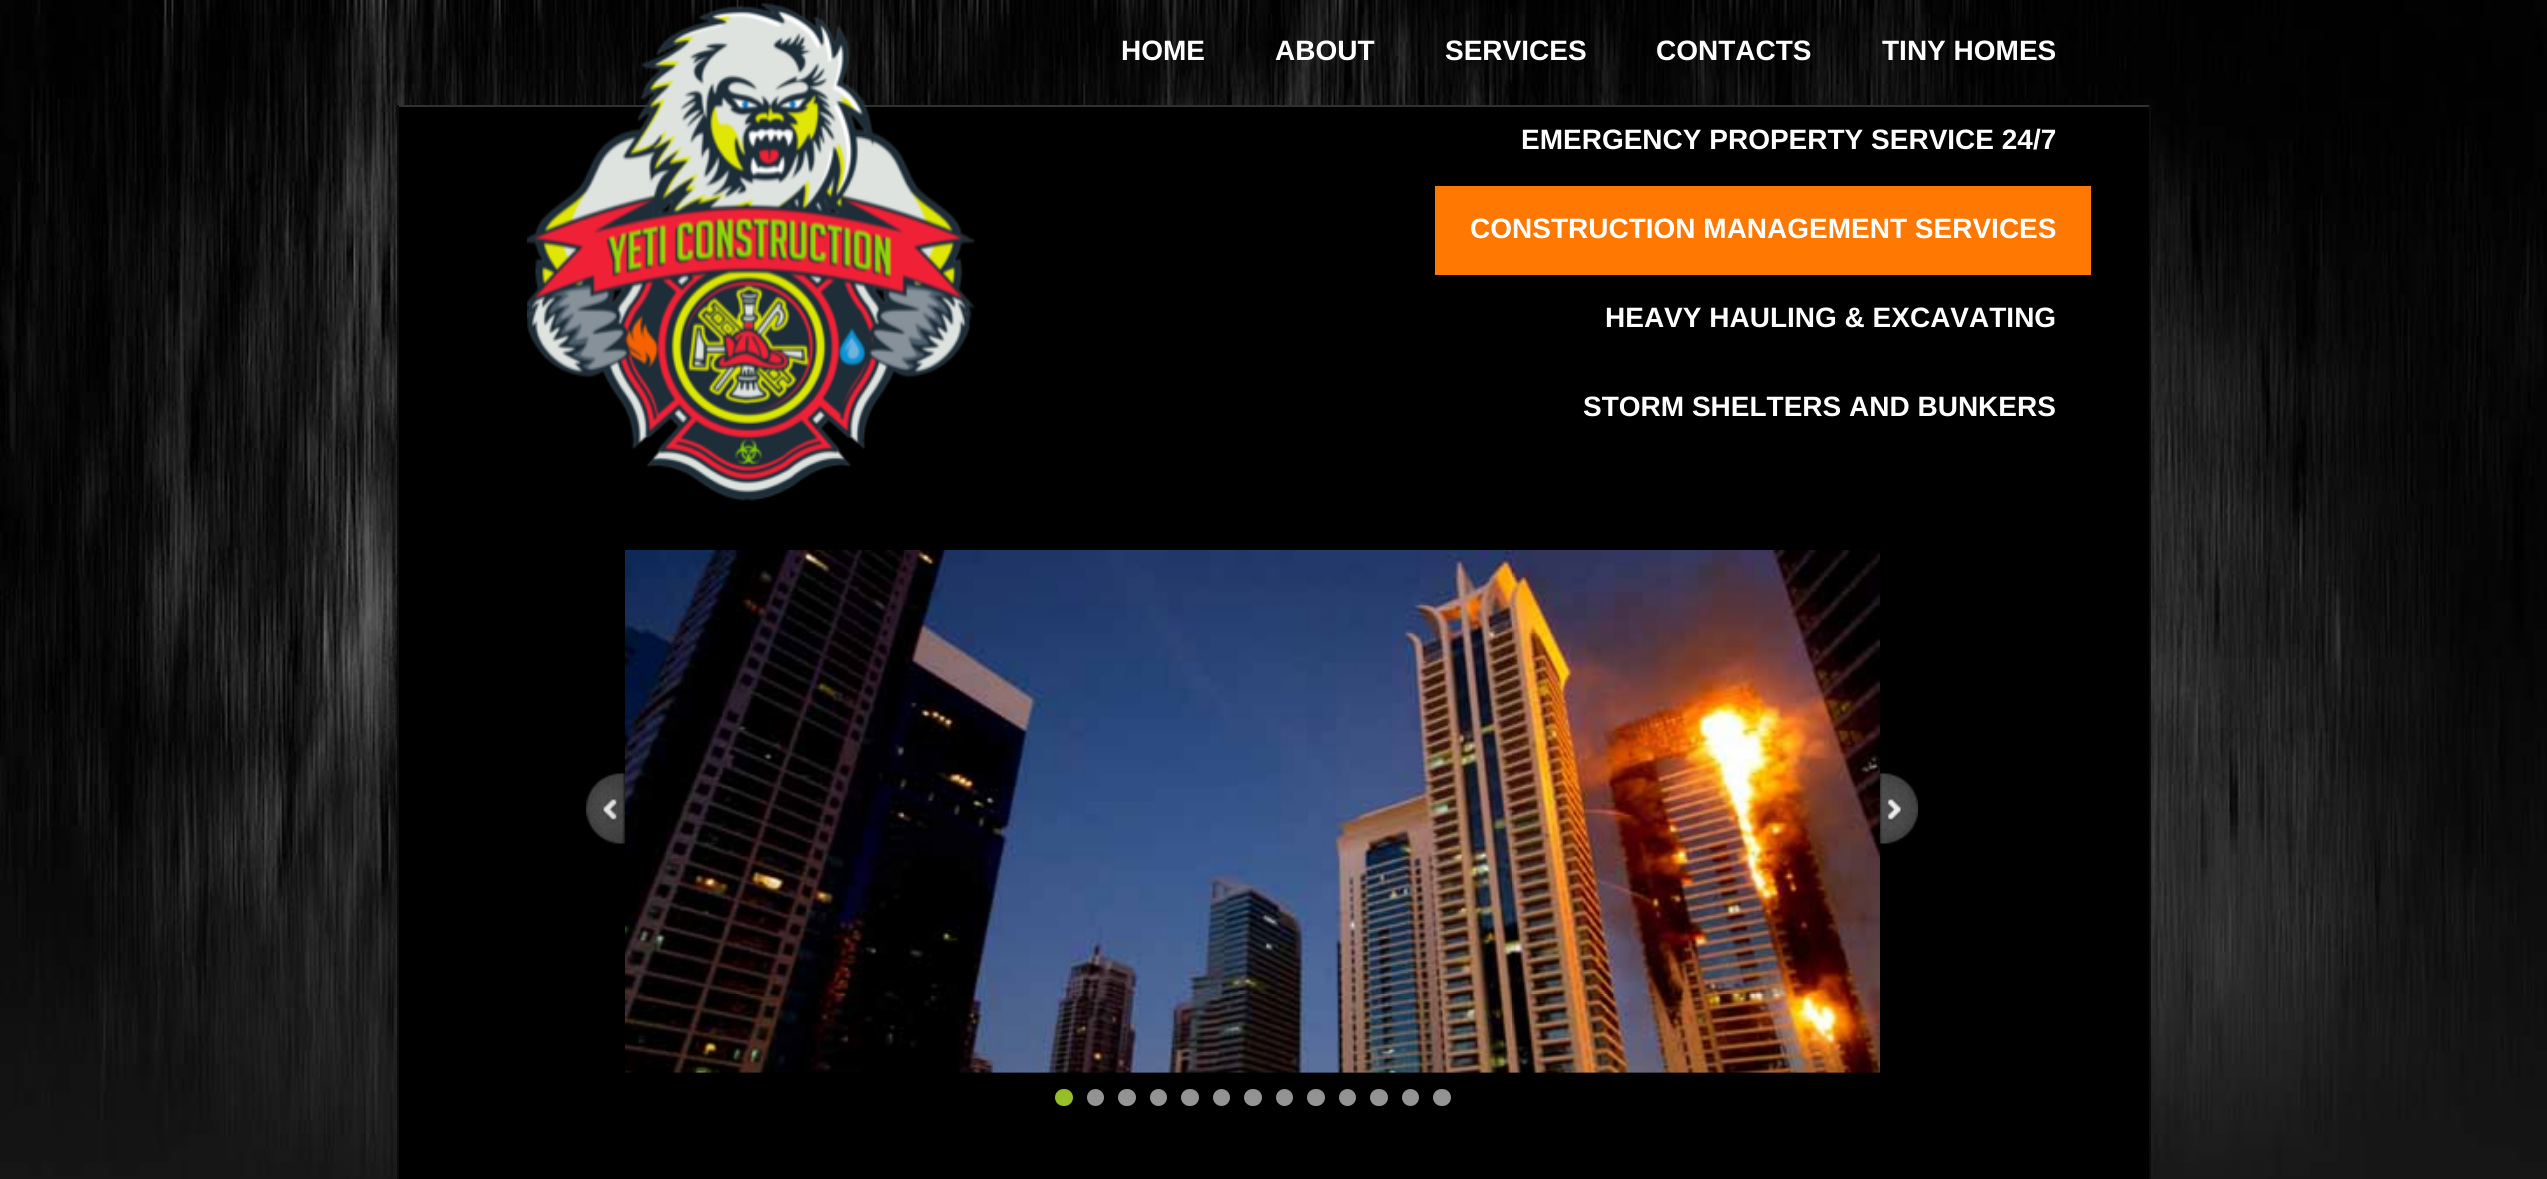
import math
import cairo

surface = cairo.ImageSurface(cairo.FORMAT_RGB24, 2547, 1179)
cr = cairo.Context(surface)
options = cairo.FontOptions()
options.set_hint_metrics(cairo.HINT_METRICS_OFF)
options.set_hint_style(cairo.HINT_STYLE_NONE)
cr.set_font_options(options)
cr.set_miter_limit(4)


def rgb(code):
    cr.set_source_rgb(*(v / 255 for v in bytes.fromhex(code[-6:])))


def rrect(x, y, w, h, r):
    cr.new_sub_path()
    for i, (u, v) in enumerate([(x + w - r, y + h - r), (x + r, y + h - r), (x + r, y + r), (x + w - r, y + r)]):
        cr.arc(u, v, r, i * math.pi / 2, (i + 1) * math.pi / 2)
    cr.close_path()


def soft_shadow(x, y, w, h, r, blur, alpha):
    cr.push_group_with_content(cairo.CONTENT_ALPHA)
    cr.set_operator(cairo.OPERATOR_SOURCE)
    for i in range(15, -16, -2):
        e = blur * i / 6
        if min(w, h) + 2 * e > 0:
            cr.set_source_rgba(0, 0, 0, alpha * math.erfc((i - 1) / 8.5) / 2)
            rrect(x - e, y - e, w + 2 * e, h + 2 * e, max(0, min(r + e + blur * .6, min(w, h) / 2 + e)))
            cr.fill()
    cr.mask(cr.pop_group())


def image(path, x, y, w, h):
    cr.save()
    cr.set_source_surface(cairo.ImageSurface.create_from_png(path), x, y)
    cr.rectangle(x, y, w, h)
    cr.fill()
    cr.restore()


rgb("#ffffff")
cr.paint()
image("img/1.png", 0, 0, 2547, 1179)
for x, y, w, h, color in [
    (399, 107, 1750, 1072, "#000000"),
    (397, 105, 1754, 2, "#313131"),
    (2149, 105, 2, 1074, "#0c0c0c"),
    (397, 105, 2, 1074, "#0c0c0c"),
]:
    rgb(color)
    cr.rectangle(x, y, w, h)
    cr.fill()
image("img/2.png", 527, 2, 448, 499)
rgb("#fe7802")
cr.rectangle(1435, 186, 656, 89)
cr.fill()
image("img/4.png", 586, 773, 39, 71)
rgb("#98c22a")
rrect(1055, 1089, 18, 17, 8.5)
cr.fill()
rgb("#969696")
cr.arc(1095.5, 1097.5, 8.5, 0, 2 * math.pi)
cr.fill()
rrect(1118, 1089, 18, 17, 8.5)
cr.fill()
cr.arc(1158.5, 1097.5, 8.5, 0, 2 * math.pi)
cr.fill()
rrect(1181, 1089, 18, 17, 8.5)
cr.fill()
cr.arc(1221.5, 1097.5, 8.5, 0, 2 * math.pi)
cr.fill()
rrect(1244, 1089, 18, 17, 8.5)
cr.fill()
cr.arc(1284.5, 1097.5, 8.5, 0, 2 * math.pi)
cr.fill()
rrect(1307, 1089, 18, 17, 8.5)
cr.fill()
cr.arc(1347.5, 1097.5, 8.5, 0, 2 * math.pi)
cr.fill()
rrect(1370, 1089, 18, 17, 8.5)
cr.fill()
cr.arc(1410.5, 1097.5, 8.5, 0, 2 * math.pi)
cr.fill()
rrect(1433, 1089, 18, 17, 8.5)
cr.fill()
rgb("#000000")
soft_shadow(625, 550, 1255, 523, 0, 16, 0.25)
image("img/3.png", 625, 550, 1255, 523)
image("img/5.png", 1880, 773, 38, 71)
cr.select_font_face("Liberation Sans", cairo.FONT_SLANT_NORMAL, cairo.FONT_WEIGHT_BOLD)
cr.set_font_size(28)
rgb("#ffffff")
for x, y, s in [
    (1121, 60, "HOME"),
    (1275, 60, "ABOUT"),
    (1445, 60, "SERVICES"),
    (1656, 60, "CONTACTS"),
    (1882, 60, "TINY HOMES"),
    (1521, 149, "EMERGENCY PROPERTY SERVICE 24/7"),
    (1470, 238, "CONSTRUCTION MANAGEMENT SERVICES"),
    (1605, 327, "HEAVY HAULING & EXCAVATING"),
    (1583, 416, "STORM SHELTERS AND BUNKERS"),
]:
    cr.move_to(x, y)
    cr.show_text(s)
surface.write_to_png("page.png")
